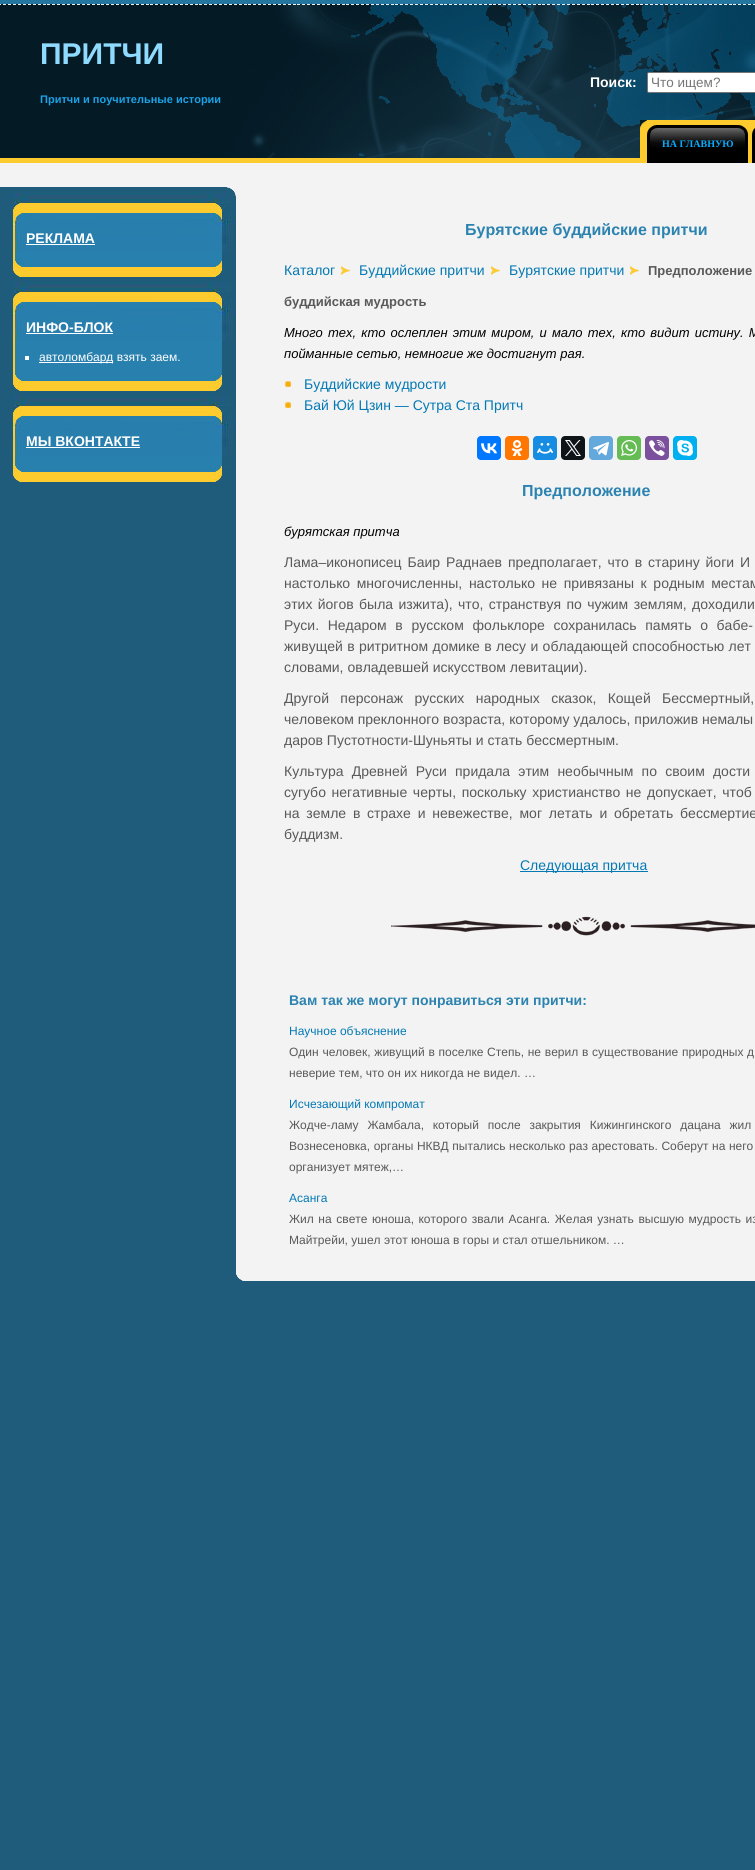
import math
import cairo

surface = cairo.ImageSurface(cairo.FORMAT_RGB24, 755, 1870)
cr = cairo.Context(surface)
options = cairo.FontOptions()
options.set_hint_metrics(cairo.HINT_METRICS_OFF)
options.set_hint_style(cairo.HINT_STYLE_NONE)
cr.set_font_options(options)
cr.set_miter_limit(4)


def rgb(code):
    cr.set_source_rgb(*(v / 255 for v in bytes.fromhex(code[-6:])))


def tracked(x, y, s, letter, word):
    cr.move_to(x, y)
    for ch in s:
        cr.show_text(ch)
        cr.rel_move_to(letter + word * (ch == ' '), 0)


def rrect(x, y, w, h, r):
    cr.new_sub_path()
    for i, (u, v) in enumerate([(x + w - r, y + h - r), (x + r, y + h - r), (x + r, y + r), (x + w - r, y + r)]):
        cr.arc(u, v, r, i * math.pi / 2, (i + 1) * math.pi / 2)
    cr.close_path()


def image(path, x, y, w, h):
    cr.save()
    cr.set_source_surface(cairo.ImageSurface.create_from_png(path), x, y)
    cr.rectangle(x, y, w, h)
    cr.fill()
    cr.restore()


rgb("#1f5c7b")
cr.paint()
image("img/1.png", 0, 158, 752, 5)
image("img/2.png", 0, 0, 755, 158)
rgb("#ffffff")
rrect(647.5, 72.5, 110, 20, 1.5)
cr.fill_preserve()
rgb("#767676")
cr.set_line_width(1)
cr.stroke()
image("img/3.png", 640, 120, 7, 38)
rgb("#fdcb2e")
cr.rectangle(647, 120, 108, 38)
cr.fill()
image("img/4.png", 647, 125, 18, 38)
image("img/5.png", 665, 125, 83, 38)
image("img/6.png", 752, 128, 3, 35)
rgb("#f3f3f3")
cr.rectangle(0, 163, 755, 24)
cr.fill()
image("img/7.png", 226, 187, 529, 13)
image("img/8.png", 13, 252, 209, 9)
image("img/9.png", 13, 193, 220, 59)
rgb("#ffffff")
cr.rectangle(26, 244, 69, 1)
cr.fill()
image("img/10.png", 13, 261, 216, 16)
image("img/11.png", 13, 341, 209, 34)
image("img/9.png", 13, 282, 220, 59)
for x, y, w, h, color in [
    (26, 333, 87, 1, "#ffffff"),
    (25, 356, 4, 4, "#ffffff"),
    (39, 362, 74, 1, "#ffffff"),
]:
    rgb(color)
    cr.rectangle(x, y, w, h)
    cr.fill()
image("img/10.png", 13, 375, 216, 16)
image("img/12.png", 13, 455, 209, 11)
image("img/9.png", 13, 396, 220, 59)
cr.rectangle(26, 447, 114, 1)
cr.fill()
image("img/10.png", 13, 466, 216, 16)
rgb("#f3f3f3")
cr.rectangle(236, 200, 519, 1081)
cr.fill()
image("img/13.png", 236, 1273, 7, 8)
image("img/14.png", 341, 266, 9, 9)
image("img/14.png", 491, 266, 9, 9)
image("img/14.png", 630, 266, 9, 9)
image("img/15.png", 285, 381, 6, 6)
image("img/15.png", 285, 402, 6, 6)
rgb("#0077ff")
rrect(477, 436, 24, 24, 4)
cr.fill()
image("img/16.png", 481, 443, 16, 11)
rgb("#ff7700")
rrect(505, 436, 24, 24, 4)
cr.fill()
image("img/17.png", 511, 440, 12, 16)
rgb("#168de2")
rrect(533, 436, 24, 24, 4)
cr.fill()
image("img/18.png", 537, 443, 16, 11)
rgb("#0f1419")
rrect(561, 436, 24, 24, 4)
cr.fill()
image("img/19.png", 565, 440, 16, 16)
rgb("#64a9dc")
rrect(589, 436, 24, 24, 4)
cr.fill()
image("img/20.png", 593, 442, 16, 14)
rgb("#65bc54")
rrect(617, 436, 24, 24, 4)
cr.fill()
image("img/21.png", 621, 440, 16, 16)
rgb("#7b519d")
rrect(645, 436, 24, 24, 4)
cr.fill()
image("img/22.png", 649, 440, 16, 16)
rgb("#00aff0")
rrect(673, 436, 24, 24, 4)
cr.fill()
image("img/23.png", 677, 440, 16, 16)
rgb("#0479b4")
cr.rectangle(520, 871, 128, 1)
cr.fill()
image("img/24.png", 391, 916, 364, 20)
cr.select_font_face("Liberation Sans", cairo.FONT_SLANT_NORMAL, cairo.FONT_WEIGHT_BOLD)
cr.set_font_size(30)
rgb("#8fdaff")
cr.move_to(40, 64)
cr.show_text("ПРИТЧИ")
cr.set_font_size(11)
rgb("#1aa3e8")
cr.move_to(40, 103)
cr.show_text("Притчи и поучительные истории")
cr.set_font_size(14)
rgb("#ffffff")
cr.move_to(590, 87)
cr.show_text("Поиск:")
cr.select_font_face("Liberation Sans")
cr.set_font_size(13.5)
rgb("#757575")
cr.move_to(651, 87)
cr.show_text("Что ищем?")
cr.select_font_face("Liberation Serif", cairo.FONT_SLANT_NORMAL, cairo.FONT_WEIGHT_BOLD)
cr.set_font_size(10)
rgb("#05acff")
cr.move_to(662, 147)
cr.show_text("НА ГЛАВНУЮ")
cr.select_font_face("Liberation Sans", cairo.FONT_SLANT_NORMAL, cairo.FONT_WEIGHT_BOLD)
cr.set_font_size(14)
rgb("#ffffff")
cr.move_to(26, 243)
cr.show_text("РЕКЛАМА")
cr.move_to(26, 332)
cr.show_text("ИНФО-БЛОК")
cr.select_font_face("Liberation Sans")
cr.set_font_size(12)
cr.move_to(39, 361)
cr.show_text("автоломбард взять заем.")
cr.select_font_face("Liberation Sans", cairo.FONT_SLANT_NORMAL, cairo.FONT_WEIGHT_BOLD)
cr.set_font_size(14)
cr.move_to(26, 446)
cr.show_text("МЫ ВКОНТАКТЕ")
cr.set_font_size(16)
rgb("#2c83b0")
cr.move_to(465, 235)
cr.show_text("Бурятские буддийские притчи")
cr.select_font_face("Liberation Sans")
cr.set_font_size(14)
rgb("#0479b4")
for x, y, s in [
    (284, 275, "Каталог"),
    (359, 275, "Буддийские притчи"),
    (509, 275, "Бурятские притчи"),
]:
    cr.move_to(x, y)
    cr.show_text(s)
cr.select_font_face("Liberation Sans", cairo.FONT_SLANT_NORMAL, cairo.FONT_WEIGHT_BOLD)
cr.set_font_size(13)
rgb("#595959")
cr.move_to(648, 275)
cr.show_text("Предположение")
cr.move_to(284, 306)
cr.show_text("буддийская мудрость")
cr.select_font_face("Liberation Sans", cairo.FONT_SLANT_ITALIC)
rgb("#000000")
tracked(284, 337, "Много тех, кто ослеплен этим миром, и мало тех, кто видит истину. М", 0, 1.5)
cr.move_to(284, 358)
cr.show_text("пойманные сетью, немногие же достигнут рая.")
cr.select_font_face("Liberation Sans")
cr.set_font_size(14)
rgb("#0479b4")
cr.move_to(304, 389)
cr.show_text("Буддийские мудрости")
cr.move_to(304, 410)
cr.show_text("Бай Юй Цзин — Сутра Ста Притч")
cr.select_font_face("Liberation Sans", cairo.FONT_SLANT_NORMAL, cairo.FONT_WEIGHT_BOLD)
cr.set_font_size(16)
rgb("#2c83b0")
cr.move_to(522, 496)
cr.show_text("Предположение")
cr.select_font_face("Liberation Sans", cairo.FONT_SLANT_ITALIC)
cr.set_font_size(13)
rgb("#000000")
cr.move_to(284, 536)
cr.show_text("бурятская притча")
cr.select_font_face("Liberation Sans")
cr.set_font_size(14)
rgb("#595959")
tracked(284, 567, "Лама–иконописец Баир Раднаев предполагает, что в старину йоги И", 0, 2)
tracked(284, 588, "настолько многочисленны, настолько не привязаны к родным местам", 0, 2.75)
tracked(284, 609, "этих йогов была изжита), что, странствуя по чужим землям, доходили", 0, 1.5)
tracked(284, 630, "Руси. Недаром в русском фольклоре сохранилась память о бабе-", 0, 4.75)
tracked(284, 651, "живущей в ритритном домике в лесу и обладающей способностью лет", 0, 0.5)
cr.move_to(284, 672)
cr.show_text("словами, овладевшей искусством левитации).")
tracked(284, 703, "Другой персонаж русских народных сказок, Кощей Бессмертный,", 0, 7.5)
cr.move_to(284, 724)
cr.show_text("человеком преклонного возраста, которому удалось, приложив немалы")
cr.move_to(284, 745)
cr.show_text("даров Пустотности-Шуньяты и стать бессмертным.")
tracked(284, 776, "Культура Древней Руси придала этим необычным по своим дости", 0, 4.25)
tracked(284, 797, "сугубо негативные черты, поскольку христианство не допускает, чтоб", 0, 1.75)
tracked(284, 818, "на земле в страхе и невежестве, мог летать и обретать бессмертие", 0, 2.9)
cr.move_to(284, 839)
cr.show_text("буддизм.")
rgb("#0479b4")
cr.move_to(520, 870)
cr.show_text("Cледующая притча")
cr.select_font_face("Liberation Sans", cairo.FONT_SLANT_NORMAL, cairo.FONT_WEIGHT_BOLD)
rgb("#2c83b0")
cr.move_to(289, 1005)
cr.show_text("Вам так же могут понравиться эти притчи:")
cr.select_font_face("Liberation Sans")
cr.set_font_size(12)
rgb("#0479b4")
cr.move_to(289, 1035)
cr.show_text("Научное объяснение")
rgb("#595959")
tracked(289, 1056, "Один человек, живущий в поселке Степь, не верил в существование природных д", 0, 0.4)
cr.move_to(289, 1077)
cr.show_text("неверие тем, что он их никогда не видел. …")
rgb("#0479b4")
cr.move_to(289, 1108)
cr.show_text("Исчезающий компромат")
rgb("#595959")
tracked(289, 1129, "Жодче-ламу Жамбала, который после закрытия Кижингинского дацана жил", 0, 5.5)
tracked(289, 1150, "Вознесеновка, органы НКВД пытались несколько раз арестовать. Соберут на него", 0, 0.25)
cr.move_to(289, 1171)
cr.show_text("организует мятеж,…")
rgb("#0479b4")
cr.move_to(289, 1202)
cr.show_text("Асанга")
rgb("#595959")
tracked(289, 1223, "Жил на свете юноша, которого звали Асанга. Желая узнать высшую мудрость из", 0, 1.25)
cr.move_to(289, 1244)
cr.show_text("Майтрейи, ушел этот юноша в горы и стал отшельником. …")
surface.write_to_png("page.png")
